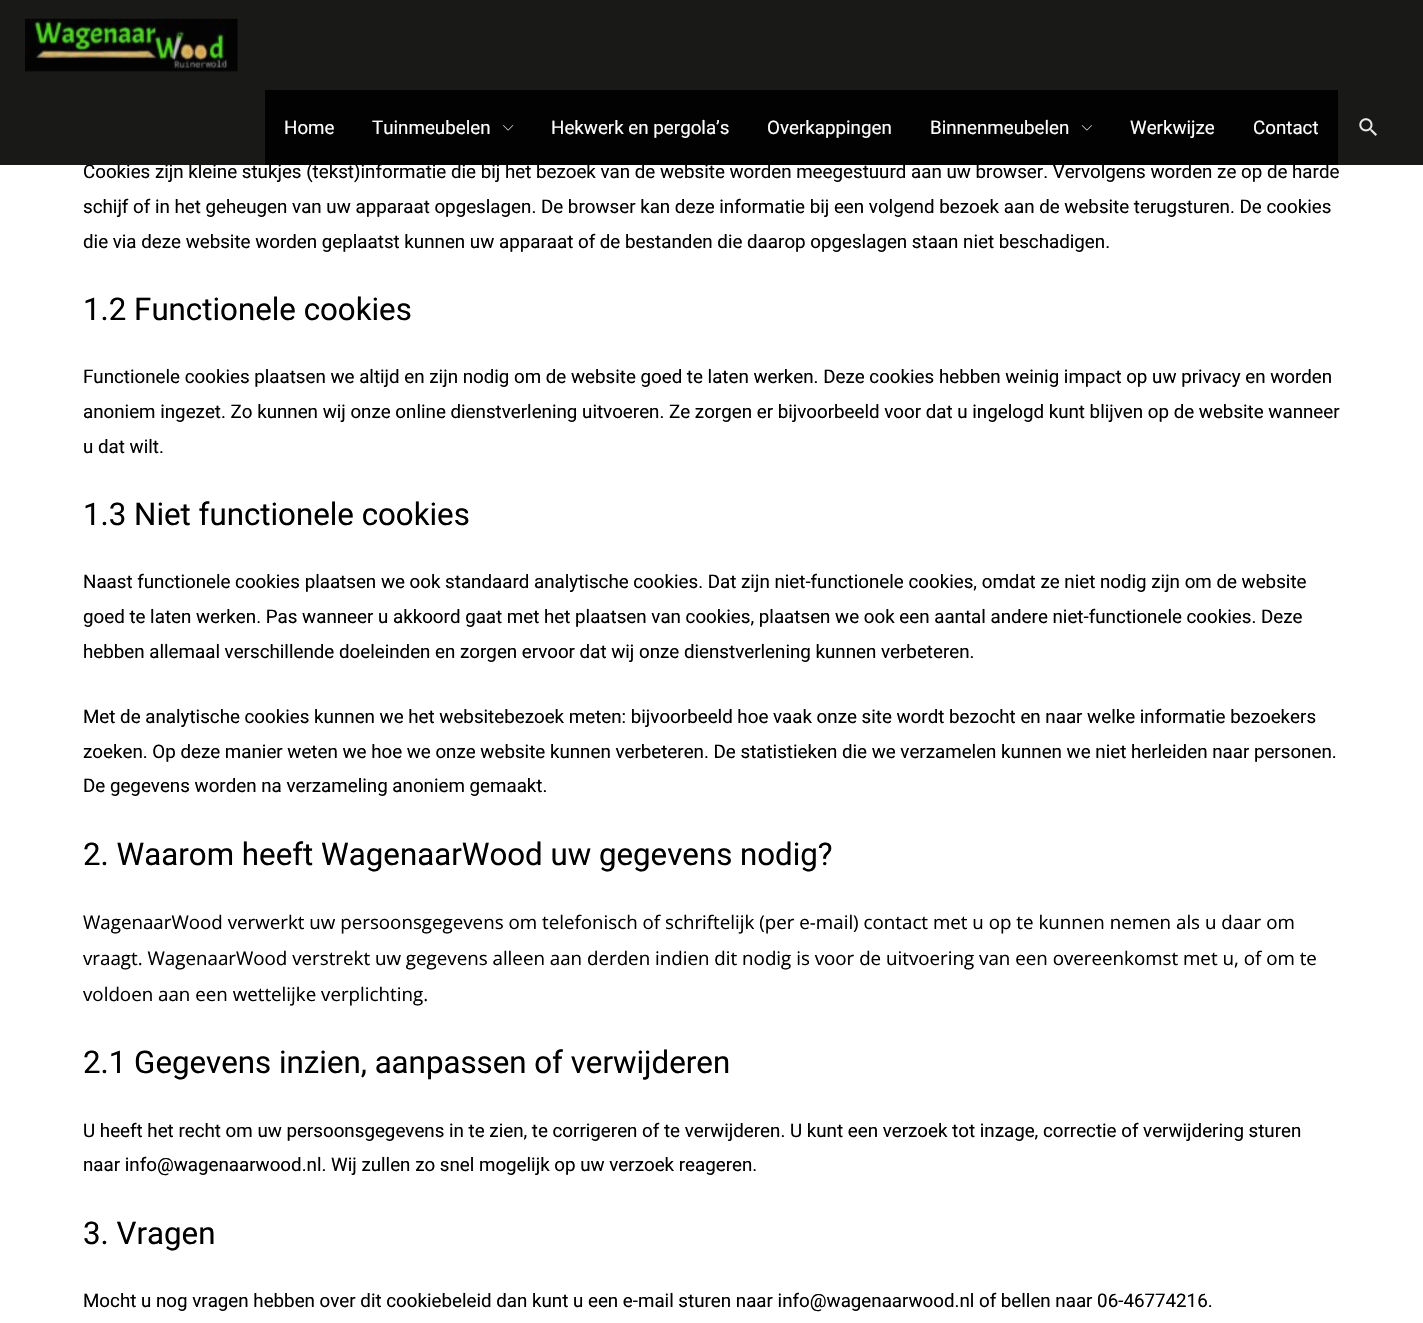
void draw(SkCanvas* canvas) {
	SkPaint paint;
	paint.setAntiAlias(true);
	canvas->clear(0xffffffff);
	SkFont f1(fontMgr->matchFamilyStyle("Roboto", SkFontStyle::Normal()), 18.75);
	f1.setSubpixel(true);
	paint.setColor(0xff000000);
	canvas->drawString("Cookies zijn kleine stukjes (tekst)informatie die bij het bezoek van de website worden meegestuurd aan uw browser. Vervolgens worden ze op de harde", 83, 178, f1, paint);
	paint.setColor(0xe6f7f5e7);
	canvas->drawRect(SkRect::MakeXYWH(0, 0, 1423, 165), paint);
	canvas->drawRect(SkRect::MakeXYWH(87, 163, 1241, 2), paint);
	paint.setColor(0xe6000000);
	canvas->drawRect(SkRect::MakeXYWH(0, 0, 1423, 165), paint);
	canvas->drawImageRect(SkImages::DeferredFromEncodedData(SkData::MakeFromFileName("img1.png")), SkRect::MakeXYWH(25, 18, 213, 54), SkSamplingOptions());
	paint.setColor(0xff020202);
	canvas->drawRect(SkRect::MakeXYWH(265, 90, 1073, 75), paint);
	paint.setColor(0xffffffff);
	canvas->drawString("Home", 284, 134, f1, paint);
	canvas->drawString("Tuinmeubelen", 372, 134, f1, paint);
	canvas->drawImageRect(SkImages::DeferredFromEncodedData(SkData::MakeFromFileName("img2.png")), SkRect::MakeXYWH(503, 125, 11, 6), SkSamplingOptions());
	canvas->drawString("Hekwerk en pergola’s", 551, 134, f1, paint);
	canvas->drawString("Overkappingen", 767, 134, f1, paint);
	canvas->drawString("Binnenmeubelen", 930, 134, f1, paint);
	canvas->drawImageRect(SkImages::DeferredFromEncodedData(SkData::MakeFromFileName("img3.png")), SkRect::MakeXYWH(1081, 125, 11, 6), SkSamplingOptions());
	canvas->drawString("Werkwijze", 1130, 134, f1, paint);
	canvas->drawString("Contact", 1253, 134, f1, paint);
	canvas->drawImageRect(SkImages::DeferredFromEncodedData(SkData::MakeFromFileName("img4.png")), SkRect::MakeXYWH(1359, 118, 18, 18), SkSamplingOptions());
	paint.setColor(0xff000000);
	canvas->drawString("schijf of in het geheugen van uw apparaat opgeslagen. De browser kan deze informatie bij een volgend bezoek aan de website terugsturen. De cookies", 83, 213, f1, paint);
	canvas->drawString("die via deze website worden geplaatst kunnen uw apparaat of de bestanden die daarop opgeslagen staan niet beschadigen.", 83, 248, f1, paint);
	SkFont f2(fontMgr->matchFamilyStyle("Roboto", SkFontStyle::Normal()), 31.25);
	f2.setSubpixel(true);
	canvas->drawString("1.2 Functionele cookies", 83, 320, f2, paint);
	canvas->drawString("Functionele cookies plaatsen we altijd en zijn nodig om de website goed te laten werken. Deze cookies hebben weinig impact op uw privacy en worden", 83, 383, f1, paint);
	canvas->drawString("anoniem ingezet. Zo kunnen wij onze online dienstverlening uitvoeren. Ze zorgen er bijvoorbeeld voor dat u ingelogd kunt blijven op de website wanneer", 83, 418, f1, paint);
	canvas->drawString("u dat wilt.", 83, 453, f1, paint);
	canvas->drawString("1.3 Niet functionele cookies", 83, 525, f2, paint);
	canvas->drawString("Naast functionele cookies plaatsen we ook standaard analytische cookies. Dat zijn niet-functionele cookies, omdat ze niet nodig zijn om de website", 83, 588, f1, paint);
	canvas->drawString("goed te laten werken. Pas wanneer u akkoord gaat met het plaatsen van cookies, plaatsen we ook een aantal andere niet-functionele cookies. Deze", 83, 623, f1, paint);
	canvas->drawString("hebben allemaal verschillende doeleinden en zorgen ervoor dat wij onze dienstverlening kunnen verbeteren.", 83, 658, f1, paint);
	canvas->drawString("Met de analytische cookies kunnen we het websitebezoek meten: bijvoorbeeld hoe vaak onze site wordt bezocht en naar welke informatie bezoekers", 83, 723, f1, paint);
	canvas->drawString("zoeken. Op deze manier weten we hoe we onze website kunnen verbeteren. De statistieken die we verzamelen kunnen we niet herleiden naar personen.", 83, 758, f1, paint);
	canvas->drawString("De gegevens worden na verzameling anoniem gemaakt.", 83, 792, f1, paint);
	canvas->drawString("2. Waarom heeft WagenaarWood uw gegevens nodig?", 83, 865, f2, paint);
	SkFont f3(fontMgr->matchFamilyStyle("Open Sans", SkFontStyle::Normal()), 18.75);
	f3.setSubpixel(true);
	canvas->drawString("WagenaarWood verwerkt uw persoonsgegevens om telefonisch of schriftelijk (per e-mail) contact met u op te kunnen nemen als u daar om", 83, 929, f3, paint);
	canvas->drawString("vraagt. WagenaarWood verstrekt uw gegevens alleen aan derden indien dit nodig is voor de uitvoering van een overeenkomst met u, of om te", 83, 965, f3, paint);
	canvas->drawString("voldoen aan een wettelijke verplichting.", 83, 1001, f3, paint);
	canvas->drawString("2.1 Gegevens inzien, aanpassen of verwijderen", 83, 1073, f2, paint);
	canvas->drawString("U heeft het recht om uw persoonsgegevens in te zien, te corrigeren of te verwijderen. U kunt een verzoek tot inzage, correctie of verwijdering sturen", 83, 1137, f1, paint);
	canvas->drawString("naar info@wagenaarwood.nl. Wij zullen zo snel mogelijk op uw verzoek reageren.", 83, 1171, f1, paint);
	canvas->drawString("3. Vragen", 83, 1244, f2, paint);
	canvas->drawString("Mocht u nog vragen hebben over dit cookiebeleid dan kunt u een e-mail sturen naar info@wagenaarwood.nl of bellen naar 06-46774216.", 83, 1307, f1, paint);
}
